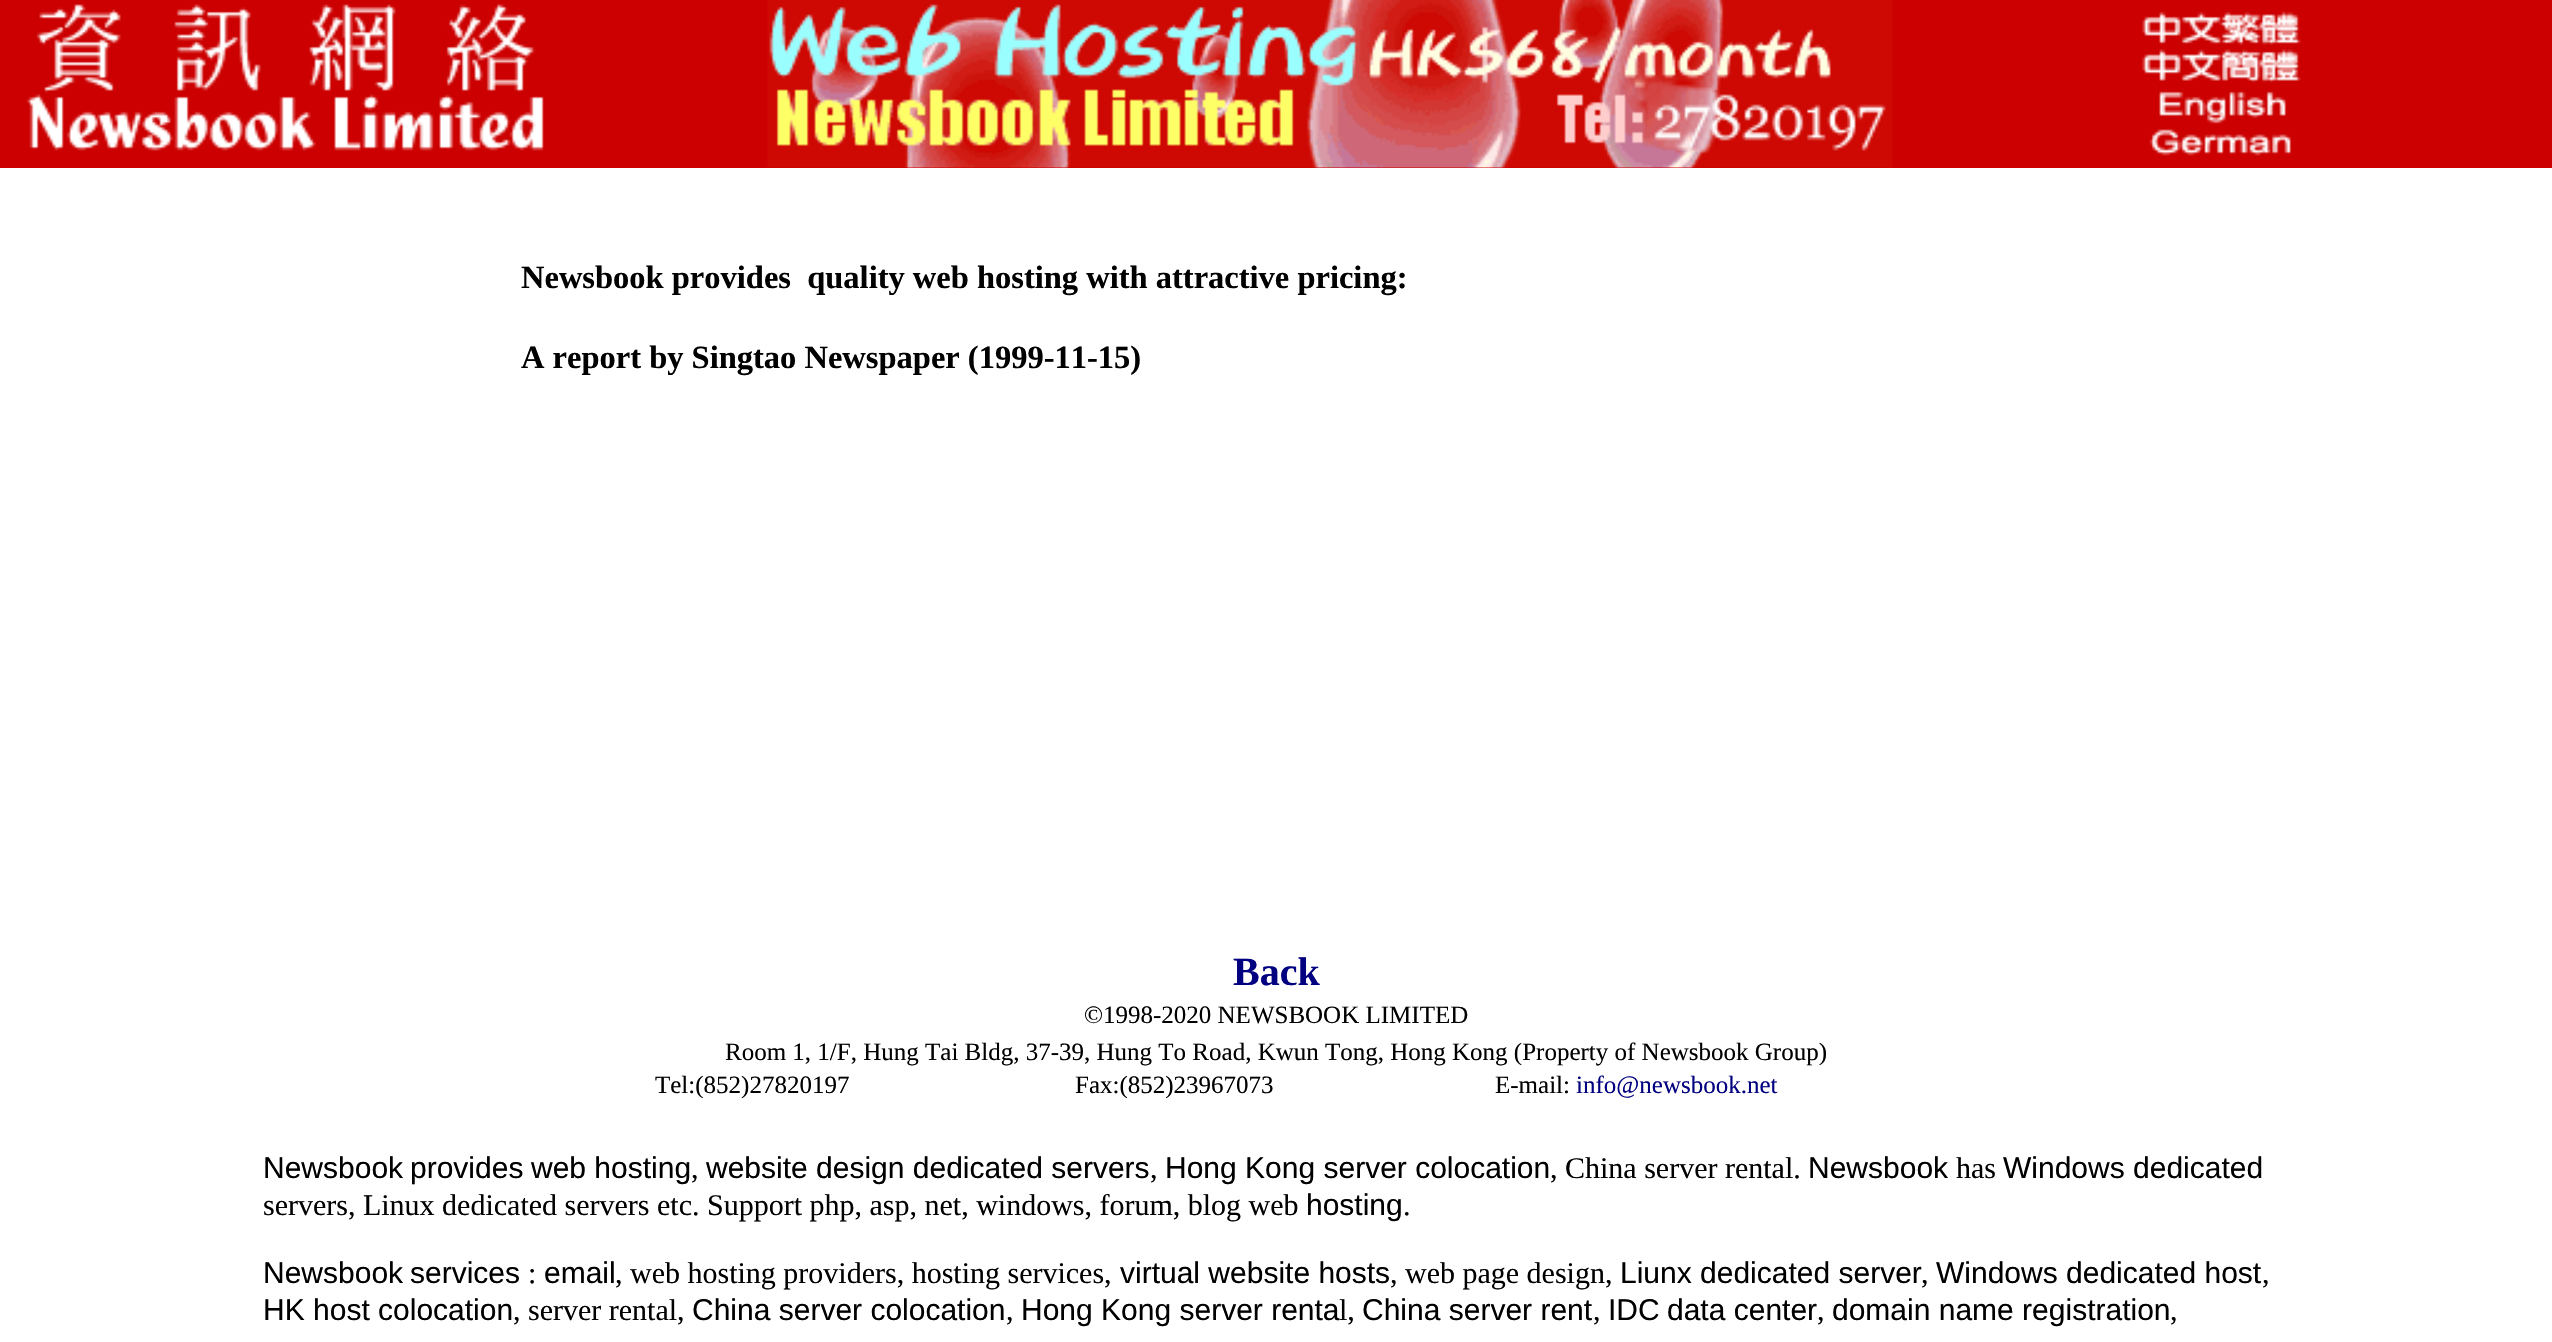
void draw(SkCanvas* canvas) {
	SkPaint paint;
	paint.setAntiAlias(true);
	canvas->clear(0xffffffff);
	paint.setColor(0xffcc0000);
	canvas->drawRect(SkRect::MakeXYWH(0, 0, 2552, 168), paint);
	canvas->drawImageRect(SkImages::DeferredFromEncodedData(SkData::MakeFromFileName("img1.png")), SkRect::MakeXYWH(27, 4, 517, 147), SkSamplingOptions());
	canvas->drawImageRect(SkImages::DeferredFromEncodedData(SkData::MakeFromFileName("img2.png")), SkRect::MakeXYWH(767, 0, 1126, 168), SkSamplingOptions());
	canvas->drawImageRect(SkImages::DeferredFromEncodedData(SkData::MakeFromFileName("img3.png")), SkRect::MakeXYWH(2142, 11, 159, 35), SkSamplingOptions());
	canvas->drawImageRect(SkImages::DeferredFromEncodedData(SkData::MakeFromFileName("img4.png")), SkRect::MakeXYWH(2142, 49, 159, 34), SkSamplingOptions());
	canvas->drawImageRect(SkImages::DeferredFromEncodedData(SkData::MakeFromFileName("img5.png")), SkRect::MakeXYWH(2159, 91, 127, 33), SkSamplingOptions());
	canvas->drawImageRect(SkImages::DeferredFromEncodedData(SkData::MakeFromFileName("img6.png")), SkRect::MakeXYWH(2149, 129, 142, 27), SkSamplingOptions());
	SkFont f1(fontMgr->matchFamilyStyle("Liberation Serif", SkFontStyle::Bold()), 32.5);
	f1.setSubpixel(true);
	paint.setColor(0xff000000);
	canvas->drawString("Newsbook provides  quality web hosting with attractive pricing:", 521, 288, f1, paint);
	canvas->drawString("A report by Singtao Newspaper (1999-11-15)", 521, 368, f1, paint);
	SkFont f2(fontMgr->matchFamilyStyle("Liberation Serif", SkFontStyle::Bold()), 40);
	f2.setSubpixel(true);
	paint.setColor(0xff000080);
	canvas->drawString("Back", 1233, 985, f2, paint);
	SkFont f3(fontMgr->matchFamilyStyle("Liberation Serif", SkFontStyle::Normal()), 25);
	f3.setSubpixel(true);
	paint.setColor(0xff000000);
	canvas->drawString("©1998-2020 NEWSBOOK LIMITED", 1084, 1023, f3, paint);
	canvas->drawString("Room 1, 1/F, Hung Tai Bldg, 37-39, Hung To Road, Kwun Tong, Hong Kong (Property of Newsbook Group)", 725, 1060, f3, paint);
	canvas->drawString("Tel:(852)27820197", 655, 1093, f3, paint);
	canvas->drawString("Fax:(852)23967073", 1075, 1093, f3, paint);
	canvas->drawString("E-mail:", 1495, 1093, f3, paint);
	paint.setColor(0xff000080);
	canvas->drawString("info@newsbook.net", 1576, 1093, f3, paint);
	SkFont f4(fontMgr->matchFamilyStyle("Liberation Sans", SkFontStyle::Normal()), 30);
	f4.setSubpixel(true);
	paint.setColor(0xff000000);
	canvas->drawString("Newsbook", 263, 1178, f4, paint);
	canvas->drawString("provides", 410, 1178, f4, paint);
	canvas->drawString("web hosting", 531, 1178, f4, paint);
	SkFont f5(fontMgr->matchFamilyStyle("Liberation Serif", SkFontStyle::Normal()), 30);
	f5.setSubpixel(true);
	canvas->drawString(",", 691, 1178, f5, paint);
	canvas->drawString("website design dedicated servers", 706, 1178, f4, paint);
	canvas->drawString(",", 1150, 1178, f5, paint);
	canvas->drawString("Hong Kong server colocation", 1165, 1178, f4, paint);
	canvas->drawString(", China server rental.", 1550, 1178, f5, paint);
	canvas->drawString("Newsbook", 1808, 1178, f4, paint);
	canvas->drawString("has", 1956, 1178, f5, paint);
	canvas->drawString("Windows dedicated", 2003, 1178, f4, paint);
	canvas->drawString("servers, Linux dedicated servers etc. Support php, asp, net, windows, forum, blog web", 263, 1215, f5, paint);
	canvas->drawString("hosting", 1306, 1215, f4, paint);
	canvas->drawString(".", 1403, 1215, f5, paint);
	canvas->drawString("Newsbook", 263, 1283, f4, paint);
	canvas->drawString("services", 410, 1283, f4, paint);
	canvas->drawString(":", 528, 1283, f5, paint);
	canvas->drawString("email", 544, 1283, f4, paint);
	canvas->drawString(", web hosting providers, hosting services,", 615, 1283, f5, paint);
	canvas->drawString("virtual website hosts", 1120, 1283, f4, paint);
	canvas->drawString(", web page design,", 1390, 1283, f5, paint);
	canvas->drawString("Liunx dedicated server", 1620, 1283, f4, paint);
	canvas->drawString(",", 1921, 1283, f5, paint);
	canvas->drawString("Windows dedicated host", 1936, 1283, f4, paint);
	canvas->drawString(",", 2262, 1283, f5, paint);
	canvas->drawString("HK host colocation", 263, 1320, f4, paint);
	canvas->drawString(", server rental,", 513, 1320, f5, paint);
	canvas->drawString("China server colocation", 692, 1320, f4, paint);
	canvas->drawString(",", 1006, 1320, f5, paint);
	canvas->drawString("Hong Kong server renta", 1021, 1320, f4, paint);
	canvas->drawString("l,", 1339, 1320, f5, paint);
	canvas->drawString("China server rent", 1362, 1320, f4, paint);
	canvas->drawString(",", 1593, 1320, f5, paint);
	canvas->drawString("IDC", 1608, 1320, f4, paint);
	canvas->drawString("data center", 1667, 1320, f4, paint);
	canvas->drawString(",", 1817, 1320, f5, paint);
	canvas->drawString("domain name registration", 1832, 1320, f4, paint);
	canvas->drawString(",", 2170, 1320, f5, paint);
}
